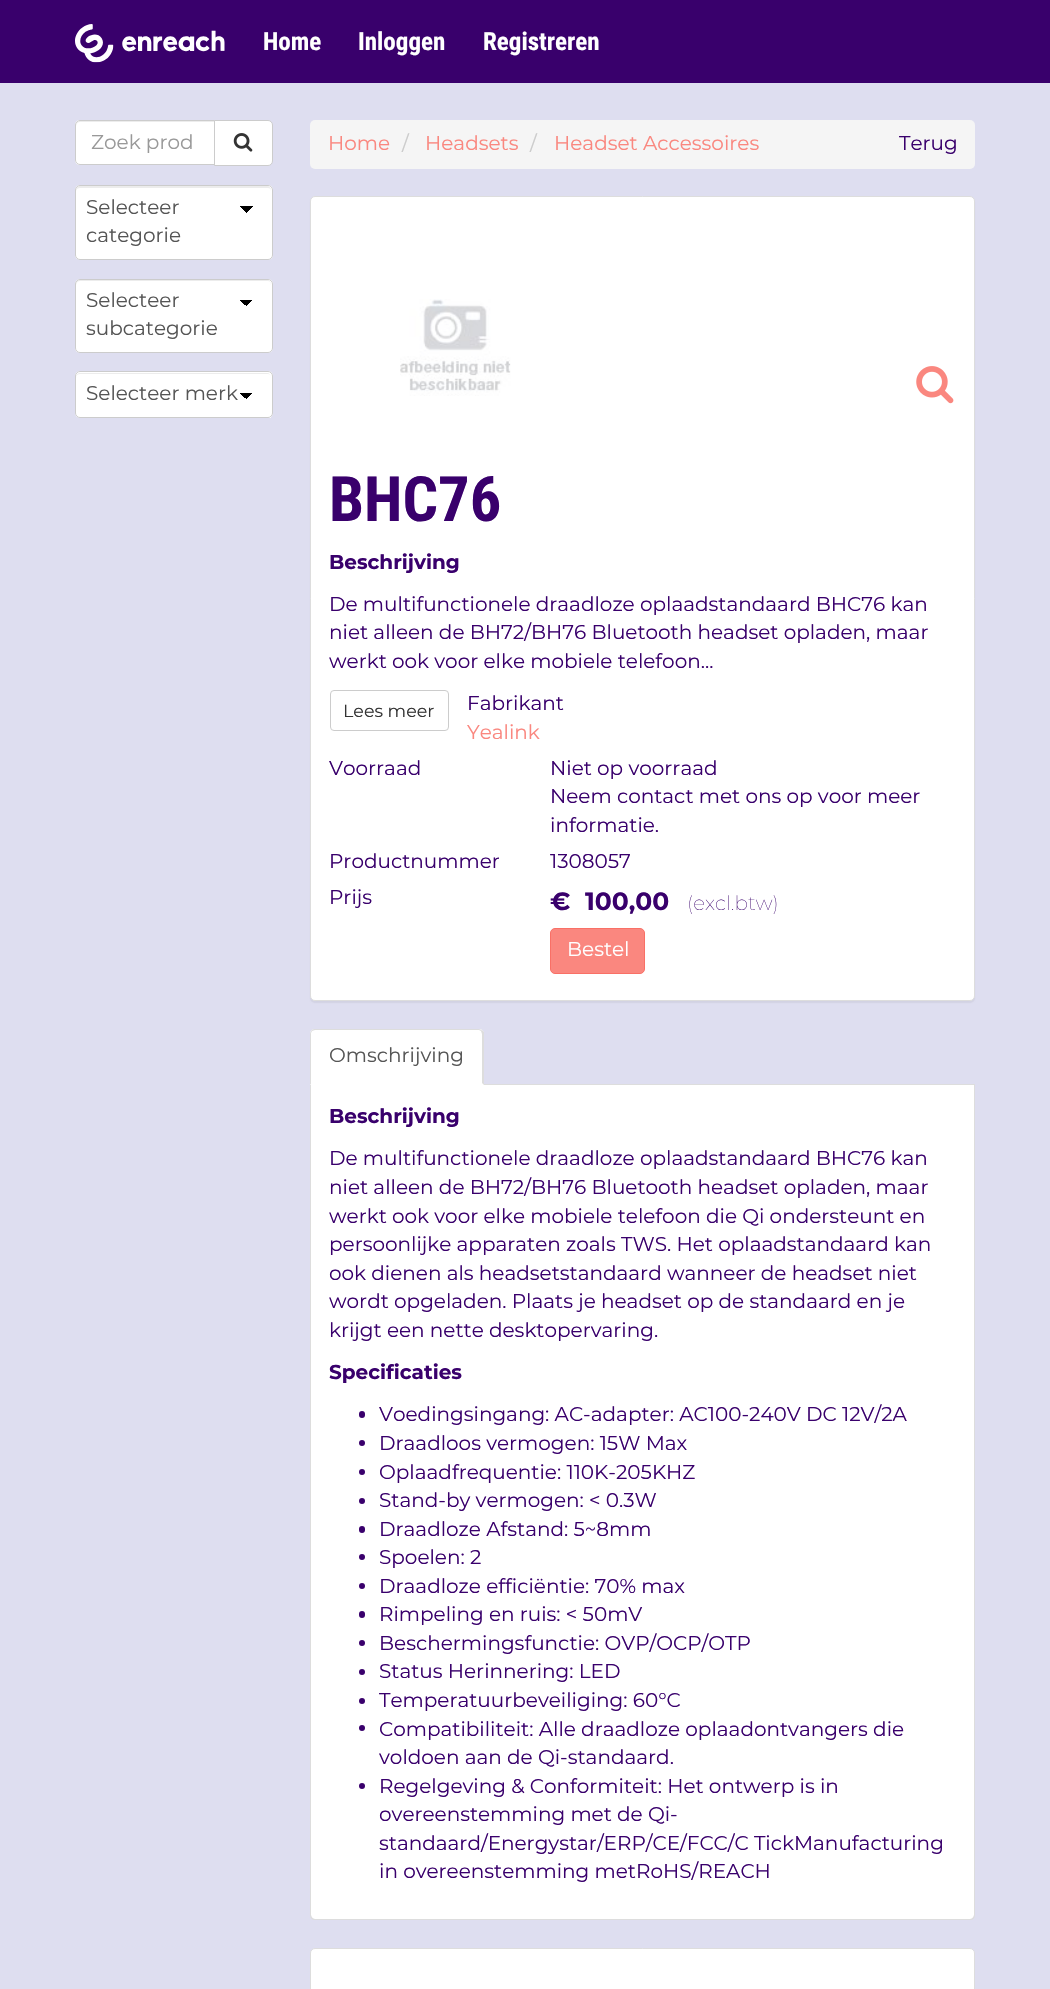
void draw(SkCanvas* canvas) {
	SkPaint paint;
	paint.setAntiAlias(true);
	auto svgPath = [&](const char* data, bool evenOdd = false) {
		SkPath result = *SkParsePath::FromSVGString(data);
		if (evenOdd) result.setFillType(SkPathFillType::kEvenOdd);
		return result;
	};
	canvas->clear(0xffdedef0);
	paint.setColor(0xff39006c);
	canvas->drawRect(SkRect::MakeXYWH(0, 0, 1050, 83), paint);
	canvas->drawImageRect(SkImages::DeferredFromEncodedData(SkData::MakeFromFileName("img1.png")), SkRect::MakeXYWH(75, 24, 150, 39), SkSamplingOptions());
	SkFont f1(fontMgr->matchFamilyStyle("Roboto Condensed", SkFontStyle::Bold()), 25);
	f1.setSubpixel(true);
	paint.setColor(0xffffffff);
	canvas->drawString("Home", 263, 50, f1, paint);
	canvas->drawString("Inloggen", 358, 50, f1, paint);
	canvas->drawString("Registreren", 483, 50, f1, paint);
	canvas->drawPath(svgPath("M80 120H215V165H80C77 165 75 163 75 160V125C75 122 77 120 80 120Z"), paint);
	paint.setColor(0xffececec);
	canvas->drawPath(svgPath("M80 122H214V121H80C78 121 76 123 76 125V126C76 124 78 122 80 122Z"), paint);
	paint.setStroke(true);
	paint.setStrokeWidth(1);
	paint.setColor(0xffcccccc);
	canvas->drawPath(svgPath("M80 120.5H214.5V164.5H80C77.5 164.5 75.5 162.5 75.5 160V125C75.5 122.5 77.5 120.5 80 120.5Z"), paint);
	SkFont f2(fontMgr->matchFamilyStyle("Montserrat", SkFontStyle::Normal()), 20);
	f2.setSubpixel(true);
	paint.setStroke(false);
	paint.setColor(0xff999999);
	canvas->drawString("Zoek prod", 91, 149, f2, paint);
	paint.setColor(0xffffffff);
	canvas->drawPath(svgPath("M214.5 120.5H268C270.5 120.5 272.5 122.5 272.5 125V161C272.5 163.5 270.5 165.5 268 165.5H214.5Z"), paint);
	paint.setStroke(true);
	paint.setColor(0xffcccccc);
	canvas->drawPath(svgPath("M214.5 120.5H268C270.5 120.5 272.5 122.5 272.5 125V161C272.5 163.5 270.5 165.5 268 165.5H214.5Z"), paint);
	canvas->drawImageRect(SkImages::DeferredFromEncodedData(SkData::MakeFromFileName("img2.png")), SkRect::MakeXYWH(233, 133, 20, 19), SkSamplingOptions());
	paint.setStroke(false);
	paint.setColor(0xffffffff);
	canvas->drawRoundRect(SkRect::MakeXYWH(75, 185, 198, 75), 5, 5, paint);
	{
		const SkColor colors[] = {0xff000000, 0xffffffff};
		const float stops[] = {0.5, 0.5};
		const SkPoint ends[] = {{246, 206}, {253, 213}};
		paint.setShader(SkGradientShader::MakeLinear(ends, colors, stops, 2, SkTileMode::kClamp));
		paint.setAlpha(255);
	}
	canvas->drawRect(SkRect::MakeXYWH(246, 206, 7, 7), paint);
	{
		const SkColor colors[] = {0xffffffff, 0xff000000};
		const float stops[] = {0.5, 0.5};
		const SkPoint ends[] = {{240, 213}, {246, 206}};
		paint.setShader(SkGradientShader::MakeLinear(ends, colors, stops, 2, SkTileMode::kClamp));
		paint.setAlpha(255);
	}
	canvas->drawRect(SkRect::MakeXYWH(240, 206, 6, 7), paint);
	paint.setShader(nullptr);
	paint.setColor(0xffececec);
	canvas->drawPath(svgPath("M80 188H268C270 188 271 189 271 191V190C271 188 269 186 267 186H80C78 186 76 188 76 190V191C76 189 78 188 80 188Z"), paint);
	paint.setStroke(true);
	paint.setColor(0xffcccccc);
	canvas->drawRoundRect(SkRect::MakeXYWH(75.5, 185.5, 197, 74), 4.5, 4.5, paint);
	paint.setStroke(false);
	paint.setColor(0xff555555);
	canvas->drawString("Selecteer", 86, 214, f2, paint);
	canvas->drawString("categorie", 86, 242, f2, paint);
	paint.setColor(0xffffffff);
	canvas->drawRoundRect(SkRect::MakeXYWH(75, 279, 198, 74), 5, 5, paint);
	{
		const SkColor colors[] = {0xff000000, 0xffffffff};
		const float stops[] = {0.5, 0.5};
		const SkPoint ends[] = {{246, 300}, {253, 306}};
		paint.setShader(SkGradientShader::MakeLinear(ends, colors, stops, 2, SkTileMode::kClamp));
		paint.setAlpha(255);
	}
	canvas->drawRect(SkRect::MakeXYWH(246, 300, 7, 6), paint);
	{
		const SkColor colors[] = {0xffffffff, 0xff000000};
		const float stops[] = {0.5, 0.5};
		const SkPoint ends[] = {{240, 306}, {246, 300}};
		paint.setShader(SkGradientShader::MakeLinear(ends, colors, stops, 2, SkTileMode::kClamp));
		paint.setAlpha(255);
	}
	canvas->drawRect(SkRect::MakeXYWH(240, 300, 6, 5), paint);
	paint.setShader(nullptr);
	paint.setColor(0xffececec);
	canvas->drawPath(svgPath("M80 281H268C270 281 271 283 271 285V284C271 282 269 280 267 280H80C78 280 76 282 76 284V285C76 283 78 281 80 281Z"), paint);
	paint.setStroke(true);
	paint.setColor(0xffcccccc);
	canvas->drawRoundRect(SkRect::MakeXYWH(75.5, 279.5, 197, 73), 4.5, 4.5, paint);
	paint.setStroke(false);
	paint.setColor(0xff555555);
	canvas->drawString("Selecteer", 86, 307, f2, paint);
	canvas->drawString("subcategorie", 86, 335, f2, paint);
	paint.setColor(0xffffffff);
	canvas->drawRoundRect(SkRect::MakeXYWH(75, 371, 198, 47), 5, 5, paint);
	canvas->drawRect(SkRect::MakeXYWH(269, 417, 2, 1), paint);
	{
		const SkColor colors[] = {0xff000000, 0xffffffff};
		const float stops[] = {0.5, 0.5};
		const SkPoint ends[] = {{246, 393}, {253, 399}};
		paint.setShader(SkGradientShader::MakeLinear(ends, colors, stops, 2, SkTileMode::kClamp));
		paint.setAlpha(255);
	}
	canvas->drawRect(SkRect::MakeXYWH(246, 393, 7, 6), paint);
	{
		const SkColor colors[] = {0xffffffff, 0xff000000};
		const float stops[] = {0.5, 0.5};
		const SkPoint ends[] = {{240, 399}, {246, 393}};
		paint.setShader(SkGradientShader::MakeLinear(ends, colors, stops, 2, SkTileMode::kClamp));
		paint.setAlpha(255);
	}
	canvas->drawRect(SkRect::MakeXYWH(240, 393, 6, 5), paint);
	paint.setShader(nullptr);
	paint.setColor(0xffececec);
	canvas->drawPath(svgPath("M80 374H268C270 374 271 375 271 378V377C271 375 269 373 267 373H80C78 373 76 375 76 377V378C76 375 78 374 80 374Z"), paint);
	paint.setStroke(true);
	paint.setColor(0xffcccccc);
	canvas->drawRoundRect(SkRect::MakeXYWH(75.5, 371.5, 197, 46), 4.5, 4.5, paint);
	paint.setStroke(false);
	paint.setColor(0xff555555);
	canvas->drawString("Selecteer merk", 86, 400, f2, paint);
	paint.setColor(0xfff5f5f5);
	canvas->drawRoundRect(SkRect::MakeXYWH(310, 120, 665, 49), 5, 5, paint);
	paint.setColor(0xfffa877f);
	canvas->drawString("Home", 328, 150, f2, paint);
	paint.setColor(0xffcccccc);
	canvas->drawString("/", 402, 150, f2, paint);
	paint.setColor(0xfffa877f);
	canvas->drawString("Headsets", 425, 150, f2, paint);
	paint.setColor(0xffcccccc);
	canvas->drawString("/", 530, 150, f2, paint);
	paint.setColor(0xfffa877f);
	canvas->drawString("Headset Accessoires", 554, 150, f2, paint);
	paint.setColor(0xff39006c);
	canvas->drawString("Terug", 899, 150, f2, paint);
	paint.setColor(0x0d000000);
	paint.setMaskFilter(SkMaskFilter::MakeBlur(kNormal_SkBlurStyle, 0.5));
	canvas->drawRoundRect(SkRect::MakeXYWH(310, 198, 665, 805), 5, 5, paint);
	paint.setMaskFilter(nullptr);
	paint.setColor(0xffffffff);
	canvas->drawRoundRect(SkRect::MakeXYWH(310.5, 196.5, 664, 804), 4.5, 4.5, paint);
	paint.setStroke(true);
	paint.setColor(0xffdddddd);
	canvas->drawRoundRect(SkRect::MakeXYWH(310.5, 196.5, 664, 804), 4.5, 4.5, paint);
	canvas->drawImageRect(SkImages::DeferredFromEncodedData(SkData::MakeFromFileName("img3.png")), SkRect::MakeXYWH(400, 299, 111, 97), SkSamplingOptions());
	canvas->drawImageRect(SkImages::DeferredFromEncodedData(SkData::MakeFromFileName("img4.png")), SkRect::MakeXYWH(916, 366, 38, 38), SkSamplingOptions());
	SkFont f3(fontMgr->matchFamilyStyle("Roboto Condensed", SkFontStyle::Bold()), 62.5);
	f3.setSubpixel(true);
	paint.setStroke(false);
	paint.setColor(0xff39006c);
	canvas->drawString("BHC76", 329, 521, f3, paint);
	SkFont f4(fontMgr->matchFamilyStyle("Montserrat", SkFontStyle::Bold()), 20);
	f4.setSubpixel(true);
	canvas->drawString("Beschrijving", 329, 569, f4, paint);
	canvas->drawString("De multifunctionele draadloze oplaadstandaard BHC76 kan", 329, 611, f2, paint);
	canvas->drawString("niet alleen de BH72/BH76 Bluetooth headset opladen, maar", 329, 639, f2, paint);
	canvas->drawString("werkt ook voor elke mobiele telefoon...", 329, 668, f2, paint);
	paint.setStroke(true);
	paint.setColor(0xffcccccc);
	canvas->drawRoundRect(SkRect::MakeXYWH(330.5, 690.5, 118, 40), 3.5, 3.5, paint);
	SkFont f5(fontMgr->matchFamilyStyle("Montserrat", SkFontStyle::Normal()), 17.5);
	f5.setSubpixel(true);
	paint.setStroke(false);
	paint.setColor(0xff333333);
	canvas->drawString("Lees meer", 343, 717, f5, paint);
	paint.setColor(0xff39006c);
	canvas->drawString("Fabrikant", 467, 710, f2, paint);
	paint.setColor(0xfffa877f);
	canvas->drawString("Yealink", 467, 739, f2, paint);
	paint.setColor(0xff39006c);
	canvas->drawString("Voorraad", 329, 775, f2, paint);
	canvas->drawString("Niet op voorraad", 550, 775, f2, paint);
	canvas->drawString("Neem contact met ons op voor meer", 550, 803, f2, paint);
	canvas->drawString("informatie.", 550, 832, f2, paint);
	canvas->drawString("Productnummer", 329, 868, f2, paint);
	canvas->drawString("1308057", 550, 868, f2, paint);
	canvas->drawString("Prijs", 329, 904, f2, paint);
	SkFont f6(fontMgr->matchFamilyStyle("Montserrat", SkFontStyle::Bold()), 25);
	f6.setSubpixel(true);
	canvas->drawString("€", 550, 910, f6, paint);
	canvas->drawString("100,00", 585, 910, f6, paint);
	SkFont f7(fontMgr->matchFamilyStyle("Montserrat", SkFontStyle(100, SkFontStyle::kNormal_Width, SkFontStyle::kUpright_Slant)), 20);
	f7.setSubpixel(true);
	canvas->drawString("(excl.btw)", 687, 910, f7, paint);
	paint.setColor(0xfffa877f);
	canvas->drawRoundRect(SkRect::MakeXYWH(550.5, 928.5, 94, 45), 4.5, 4.5, paint);
	paint.setStroke(true);
	paint.setColor(0xfff97066);
	canvas->drawRoundRect(SkRect::MakeXYWH(550.5, 928.5, 94, 45), 4.5, 4.5, paint);
	paint.setStroke(false);
	paint.setColor(0xffffffff);
	canvas->drawString("Bestel", 567, 956, f2, paint);
	paint.setColor(0xffdddddd);
	canvas->drawRect(SkRect::MakeXYWH(484, 1084, 491, 1), paint);
	paint.setColor(0xffffffff);
	canvas->drawPath(svgPath("M315 1029H479C482 1029 484 1031 484 1034V1085H310V1034C310 1031 312 1029 315 1029Z"), paint);
	paint.setColor(0xffdddddd);
	canvas->drawPath(svgPath("M315 1029C314 1029 312 1029 312 1030V1031L315 1030H479L481 1031L482 1030L479 1029Z"), paint);
	canvas->drawPath(svgPath("M482 1030L484 1032V1085L482 1083V1034L481 1031Z"), paint);
	canvas->drawPath(svgPath("M310 1085L311 1084V1033L312 1031V1030C311 1031 310 1032 310 1034Z"), paint);
	paint.setColor(0xff555555);
	canvas->drawString("Omschrijving", 329, 1062, f2, paint);
	paint.setColor(0xffffffff);
	canvas->drawPath(svgPath("M311 1085H974V1915C974 1917 972 1919 970 1919H315C313 1919 311 1917 311 1915Z"), paint);
	paint.setColor(0xffdddddd);
	canvas->drawPath(svgPath("M310 1085H975V1915C975 1918 973 1920 970 1920H315C312 1920 310 1918 310 1915ZM311 1085H974V1915C974 1917 972 1919 970 1919H315C313 1919 311 1917 311 1915Z", true), paint);
	paint.setColor(0xff39006c);
	canvas->drawString("Beschrijving", 329, 1123, f4, paint);
	canvas->drawString("De multifunctionele draadloze oplaadstandaard BHC76 kan", 329, 1165, f2, paint);
	canvas->drawString("niet alleen de BH72/BH76 Bluetooth headset opladen, maar", 329, 1194, f2, paint);
	canvas->drawString("werkt ook voor elke mobiele telefoon die Qi ondersteunt en", 329, 1223, f2, paint);
	canvas->drawString("persoonlijke apparaten zoals TWS. Het oplaadstandaard kan", 329, 1251, f2, paint);
	canvas->drawString("ook dienen als headsetstandaard wanneer de headset niet", 329, 1280, f2, paint);
	canvas->drawString("wordt opgeladen. Plaats je headset op de standaard en je", 329, 1308, f2, paint);
	canvas->drawString("krijgt een nette desktopervaring.", 329, 1337, f2, paint);
	canvas->drawString("Specificaties", 329, 1379, f4, paint);
	canvas->drawRoundRect(SkRect::MakeXYWH(359, 1411, 6, 7), 3, 3, paint);
	canvas->drawString("Voedingsingang: AC-adapter: AC100-240V DC 12V/2A", 379, 1421, f2, paint);
	canvas->drawCircle(362, 1443, 3, paint);
	canvas->drawString("Draadloos vermogen: 15W Max", 379, 1450, f2, paint);
	canvas->drawCircle(362, 1472, 3, paint);
	canvas->drawString("Oplaadfrequentie: 110K-205KHZ", 379, 1479, f2, paint);
	canvas->drawCircle(362, 1501, 3, paint);
	canvas->drawString("Stand-by vermogen: < 0.3W", 379, 1507, f2, paint);
	canvas->drawRoundRect(SkRect::MakeXYWH(359, 1526, 6, 7), 3, 3, paint);
	canvas->drawString("Draadloze Afstand: 5~8mm", 379, 1536, f2, paint);
	canvas->drawCircle(362, 1557, 3, paint);
	canvas->drawString("Spoelen: 2", 379, 1564, f2, paint);
	canvas->drawCircle(362, 1586, 3, paint);
	canvas->drawString("Draadloze efficiëntie: 70% max", 379, 1593, f2, paint);
	canvas->drawRoundRect(SkRect::MakeXYWH(359, 1611, 6, 7), 3, 3, paint);
	canvas->drawString("Rimpeling en ruis: < 50mV", 379, 1621, f2, paint);
	canvas->drawCircle(362, 1643, 3, paint);
	canvas->drawString("Beschermingsfunctie: OVP/OCP/OTP", 379, 1650, f2, paint);
	canvas->drawCircle(362, 1672, 3, paint);
	canvas->drawString("Status Herinnering: LED", 379, 1678, f2, paint);
	canvas->drawCircle(362, 1701, 3, paint);
	canvas->drawString("Temperatuurbeveiliging: 60°C", 379, 1707, f2, paint);
	canvas->drawCircle(362, 1728, 3, paint);
	canvas->drawString("Compatibiliteit: Alle draadloze oplaadontvangers die", 379, 1736, f2, paint);
	canvas->drawString("voldoen aan de Qi-standaard.", 379, 1764, f2, paint);
	canvas->drawCircle(362, 1786, 3, paint);
	canvas->drawString("Regelgeving & Conformiteit: Het ontwerp is in", 379, 1793, f2, paint);
	canvas->drawString("overeenstemming met de Qi-", 379, 1821, f2, paint);
	canvas->drawString("standaard/Energystar/ERP/CE/FCC/C TickManufacturing", 379, 1850, f2, paint);
	canvas->drawString("in overeenstemming metRoHS/REACH", 379, 1878, f2, paint);
	paint.setColor(0xffffffff);
	canvas->drawRoundRect(SkRect::MakeXYWH(310.5, 1948.5, 664, 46), 4.5, 4.5, paint);
	paint.setStroke(true);
	paint.setColor(0xffdddddd);
	canvas->drawRoundRect(SkRect::MakeXYWH(310.5, 1948.5, 664, 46), 4.5, 4.5, paint);
}
